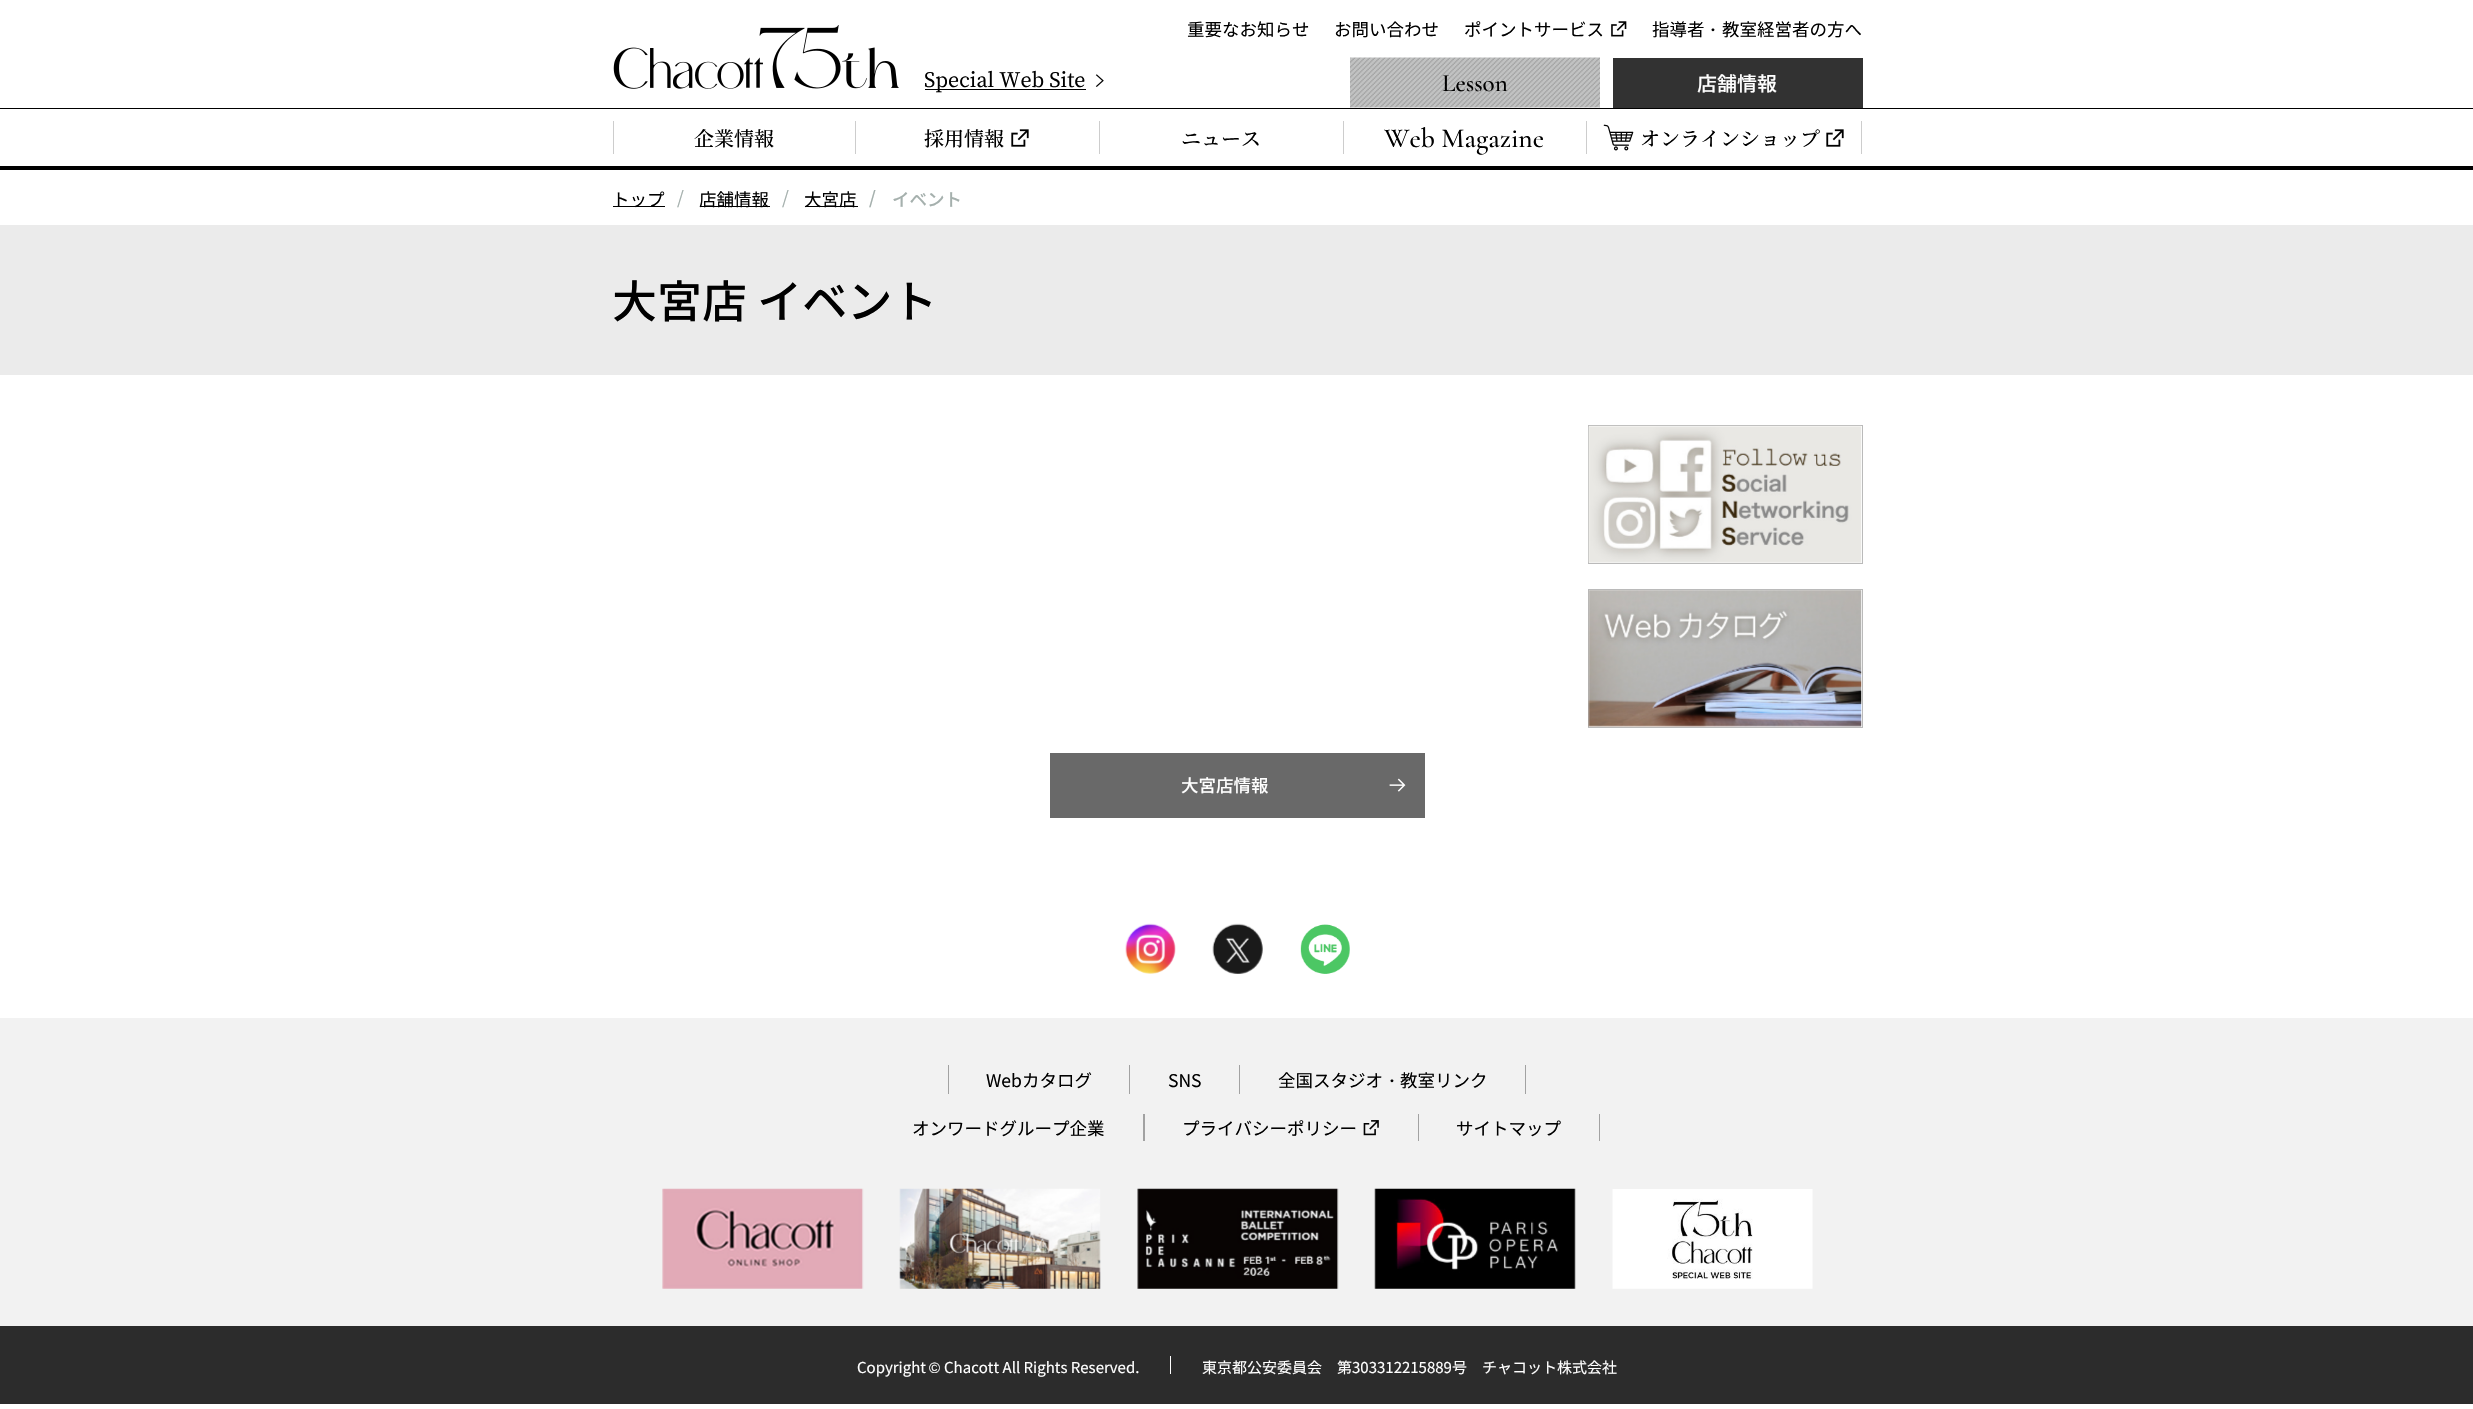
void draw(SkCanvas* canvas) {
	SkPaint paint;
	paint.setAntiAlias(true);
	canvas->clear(0xffffffff);
	paint.setColor(0xff000000);
	canvas->drawRect(SkRect::MakeXYWH(0, 166, 2473, 4), paint);
	canvas->drawImageRect(SkImages::DeferredFromEncodedData(SkData::MakeFromFileName("img1.png")), SkRect::MakeXYWH(613, 25, 286, 64), SkSamplingOptions());
	canvas->drawRect(SkRect::MakeXYWH(925, 89, 161, 1), paint);
	SkFont f1(fontMgr->matchFamilyStyle("Noto Serif JP", SkFontStyle(500, SkFontStyle::kNormal_Width, SkFontStyle::kUpright_Slant)), 20);
	f1.setSubpixel(true);
	canvas->drawString("Special Web Site", 924, 87, f1, paint);
	canvas->drawImageRect(SkImages::DeferredFromEncodedData(SkData::MakeFromFileName("img2.png")), SkRect::MakeXYWH(1095, 74, 9, 13), SkSamplingOptions());
	SkFont f2(fontMgr->matchFamilyStyle("Noto Sans JP", SkFontStyle::Normal()), 17.5);
	f2.setSubpixel(true);
	canvas->drawString("重要なお知らせ", 1187, 36, f2, paint);
	canvas->drawString("お問い合わせ", 1334, 36, f2, paint);
	canvas->drawString("ポイントサービス", 1464, 36, f2, paint);
	canvas->drawImageRect(SkImages::DeferredFromEncodedData(SkData::MakeFromFileName("img3.png")), SkRect::MakeXYWH(1611, 21, 16, 16), SkSamplingOptions());
	canvas->drawString("指導者", 1652, 36, f2, paint);
	SkFont f3(fontMgr->matchFamilyStyle("WenQuanYi Zen Hei", SkFontStyle(500, SkFontStyle::kNormal_Width, SkFontStyle::kUpright_Slant)), 17.5);
	f3.setSubpixel(true);
	canvas->drawString("・", 1704, 36, f3, paint);
	canvas->drawString("教室経営者の方へ", 1722, 36, f2, paint);
	canvas->drawRect(SkRect::MakeXYWH(0, 108, 2473, 1), paint);
	canvas->drawImageRect(SkImages::DeferredFromEncodedData(SkData::MakeFromFileName("img4.png")), SkRect::MakeXYWH(1350, 57, 250, 51), SkSamplingOptions());
	SkFont f4(fontMgr->matchFamilyStyle("Cormorant Garamond", SkFontStyle(500, SkFontStyle::kNormal_Width, SkFontStyle::kUpright_Slant)), 25);
	f4.setSubpixel(true);
	canvas->drawString("Lesson", 1442, 91, f4, paint);
	paint.setColor(0xff323232);
	canvas->drawRect(SkRect::MakeXYWH(1613, 58, 250, 50), paint);
	SkFont f5(fontMgr->matchFamilyStyle("Noto Sans JP", SkFontStyle(500, SkFontStyle::kNormal_Width, SkFontStyle::kUpright_Slant)), 20);
	f5.setSubpixel(true);
	paint.setColor(0xffffffff);
	canvas->drawString("店舗情報", 1697, 91, f5, paint);
	paint.setColor(0xffcdcdcd);
	canvas->drawRect(SkRect::MakeXYWH(855, 121, 1, 33), paint);
	canvas->drawRect(SkRect::MakeXYWH(613, 121, 1, 33), paint);
	paint.setColor(0xff000000);
	canvas->drawString("企業情報", 694, 146, f1, paint);
	paint.setColor(0xffcdcdcd);
	canvas->drawRect(SkRect::MakeXYWH(1099, 121, 1, 33), paint);
	paint.setColor(0xff000000);
	canvas->drawString("採用情報", 924, 146, f1, paint);
	canvas->drawImageRect(SkImages::DeferredFromEncodedData(SkData::MakeFromFileName("img5.png")), SkRect::MakeXYWH(1011, 129, 18, 18), SkSamplingOptions());
	paint.setColor(0xffcdcdcd);
	canvas->drawRect(SkRect::MakeXYWH(1343, 121, 1, 33), paint);
	paint.setColor(0xff000000);
	canvas->drawString("ニュース", 1181, 146, f1, paint);
	paint.setColor(0xffcdcdcd);
	canvas->drawRect(SkRect::MakeXYWH(1586, 121, 1, 33), paint);
	SkFont f6(fontMgr->matchFamilyStyle("Cormorant Garamond", SkFontStyle(500, SkFontStyle::kNormal_Width, SkFontStyle::kUpright_Slant)), 27.5);
	f6.setSubpixel(true);
	paint.setColor(0xff000000);
	canvas->drawString("Web Magazine", 1384, 147, f6, paint);
	paint.setColor(0xffcdcdcd);
	canvas->drawRect(SkRect::MakeXYWH(1861, 121, 1, 33), paint);
	canvas->drawImageRect(SkImages::DeferredFromEncodedData(SkData::MakeFromFileName("img6.png")), SkRect::MakeXYWH(1603, 124, 31, 27), SkSamplingOptions());
	paint.setColor(0xff000000);
	canvas->drawString("オンラインショップ", 1640, 146, f1, paint);
	canvas->drawImageRect(SkImages::DeferredFromEncodedData(SkData::MakeFromFileName("img5.png")), SkRect::MakeXYWH(1826, 129, 18, 18), SkSamplingOptions());
	canvas->drawRect(SkRect::MakeXYWH(613, 206, 52, 1), paint);
	canvas->drawString("トップ", 612, 206, f2, paint);
	paint.setColor(0xffa5b0ad);
	canvas->drawString("/", 677, 204, f2, paint);
	paint.setColor(0xff000000);
	canvas->drawRect(SkRect::MakeXYWH(700, 206, 70, 1), paint);
	canvas->drawString("店舗情報", 699, 206, f2, paint);
	paint.setColor(0xffa5b0ad);
	canvas->drawString("/", 782, 204, f2, paint);
	paint.setColor(0xff000000);
	canvas->drawRect(SkRect::MakeXYWH(805, 206, 53, 1), paint);
	canvas->drawString("大宮店", 804, 206, f2, paint);
	SkFont f7(fontMgr->matchFamilyStyle("Noto Sans JP", SkFontStyle(500, SkFontStyle::kNormal_Width, SkFontStyle::kUpright_Slant)), 17.5);
	f7.setSubpixel(true);
	paint.setColor(0xffa5b0ad);
	canvas->drawString("/", 869, 204, f7, paint);
	canvas->drawString("イベント", 892, 206, f7, paint);
	paint.setColor(0xffebebeb);
	canvas->drawRect(SkRect::MakeXYWH(0, 225, 2473, 150), paint);
	SkFont f8(fontMgr->matchFamilyStyle("Noto Sans JP", SkFontStyle(500, SkFontStyle::kNormal_Width, SkFontStyle::kUpright_Slant)), 45);
	f8.setSubpixel(true);
	paint.setColor(0xff000000);
	canvas->drawString("大宮店 イベント", 612, 318, f8, paint);
	paint.setStroke(true);
	paint.setStrokeWidth(1);
	paint.setColor(0xffbababa);
	canvas->drawRect(SkRect::MakeXYWH(1588.5, 425.5, 274, 138), paint);
	canvas->drawImageRect(SkImages::DeferredFromEncodedData(SkData::MakeFromFileName("img7.png")), SkRect::MakeXYWH(1588, 425, 274, 138), SkSamplingOptions());
	canvas->drawRect(SkRect::MakeXYWH(1588.5, 589.5, 274, 138), paint);
	canvas->drawImageRect(SkImages::DeferredFromEncodedData(SkData::MakeFromFileName("img8.png")), SkRect::MakeXYWH(1588, 590, 274, 137), SkSamplingOptions());
	paint.setStroke(false);
	paint.setColor(0xff696969);
	canvas->drawRect(SkRect::MakeXYWH(1050, 753, 375, 65), paint);
	paint.setColor(0xffffffff);
	canvas->drawString("大宮店情報", 1181, 792, f7, paint);
	canvas->drawImageRect(SkImages::DeferredFromEncodedData(SkData::MakeFromFileName("img9.png")), SkRect::MakeXYWH(1389, 778, 17, 14), SkSamplingOptions());
	canvas->drawImageRect(SkImages::DeferredFromEncodedData(SkData::MakeFromFileName("img10.png")), SkRect::MakeXYWH(1125, 923, 51, 51), SkSamplingOptions());
	canvas->drawImageRect(SkImages::DeferredFromEncodedData(SkData::MakeFromFileName("img11.png")), SkRect::MakeXYWH(1212, 923, 51, 51), SkSamplingOptions());
	canvas->drawImageRect(SkImages::DeferredFromEncodedData(SkData::MakeFromFileName("img12.png")), SkRect::MakeXYWH(1300, 924, 50, 50), SkSamplingOptions());
	paint.setColor(0xfff2f2f2);
	canvas->drawRect(SkRect::MakeXYWH(0, 1018, 2473, 308), paint);
	paint.setColor(0xffa2a2a2);
	canvas->drawRect(SkRect::MakeXYWH(1129, 1065, 1, 29), paint);
	canvas->drawRect(SkRect::MakeXYWH(948, 1065, 1, 29), paint);
	paint.setColor(0xff000000);
	canvas->drawString("Webカタログ", 986, 1087, f2, paint);
	paint.setColor(0xffa2a2a2);
	canvas->drawRect(SkRect::MakeXYWH(1239, 1065, 1, 29), paint);
	paint.setColor(0xff000000);
	canvas->drawString("SNS", 1168, 1087, f2, paint);
	paint.setColor(0xffa2a2a2);
	canvas->drawRect(SkRect::MakeXYWH(1525, 1065, 1, 29), paint);
	paint.setColor(0xff000000);
	canvas->drawString("全国スタジオ", 1278, 1087, f2, paint);
	canvas->drawString("・", 1383, 1087, f3, paint);
	canvas->drawString("教室リンク", 1400, 1087, f2, paint);
	paint.setColor(0xffa2a2a2);
	canvas->drawRect(SkRect::MakeXYWH(1143, 1114, 2, 27), paint);
	paint.setColor(0xff000000);
	canvas->drawString("オンワードグループ企業", 912, 1135, f2, paint);
	paint.setColor(0xffa2a2a2);
	canvas->drawRect(SkRect::MakeXYWH(1418, 1114, 1, 27), paint);
	paint.setColor(0xff000000);
	canvas->drawString("プライバシーポリシー", 1182, 1135, f2, paint);
	canvas->drawImageRect(SkImages::DeferredFromEncodedData(SkData::MakeFromFileName("img13.png")), SkRect::MakeXYWH(1363, 1120, 16, 16), SkSamplingOptions());
	paint.setColor(0xffa2a2a2);
	canvas->drawRect(SkRect::MakeXYWH(1599, 1114, 1, 27), paint);
	paint.setColor(0xff000000);
	canvas->drawString("サイトマップ", 1456, 1135, f2, paint);
	canvas->drawImageRect(SkImages::DeferredFromEncodedData(SkData::MakeFromFileName("img14.png")), SkRect::MakeXYWH(662, 1188, 202, 101), SkSamplingOptions());
	canvas->drawImageRect(SkImages::DeferredFromEncodedData(SkData::MakeFromFileName("img15.png")), SkRect::MakeXYWH(899, 1188, 202, 101), SkSamplingOptions());
	canvas->drawImageRect(SkImages::DeferredFromEncodedData(SkData::MakeFromFileName("img16.png")), SkRect::MakeXYWH(1137, 1188, 202, 101), SkSamplingOptions());
	canvas->drawImageRect(SkImages::DeferredFromEncodedData(SkData::MakeFromFileName("img17.png")), SkRect::MakeXYWH(1374, 1188, 202, 101), SkSamplingOptions());
	canvas->drawImageRect(SkImages::DeferredFromEncodedData(SkData::MakeFromFileName("img18.png")), SkRect::MakeXYWH(1612, 1189, 201, 100), SkSamplingOptions());
	paint.setColor(0xff2c2c2c);
	canvas->drawRect(SkRect::MakeXYWH(0, 1326, 2473, 78), paint);
	SkFont f9(fontMgr->matchFamilyStyle("Noto Sans JP", SkFontStyle::Normal()), 15);
	f9.setSubpixel(true);
	paint.setColor(0xffffffff);
	canvas->drawString("Copyright", 857, 1373, f9, paint);
	SkFont f10(fontMgr->matchFamilyStyle("Liberation Sans", SkFontStyle::Normal()), 15);
	f10.setSubpixel(true);
	canvas->drawString("©", 929, 1373, f10, paint);
	canvas->drawString("Chacott All Rights Reserved.", 944, 1373, f9, paint);
	canvas->drawRect(SkRect::MakeXYWH(1170, 1356, 1, 18), paint);
	canvas->drawString("東京都公安委員会　第303312215889号　チャコット株式会社", 1202, 1373, f9, paint);
}
